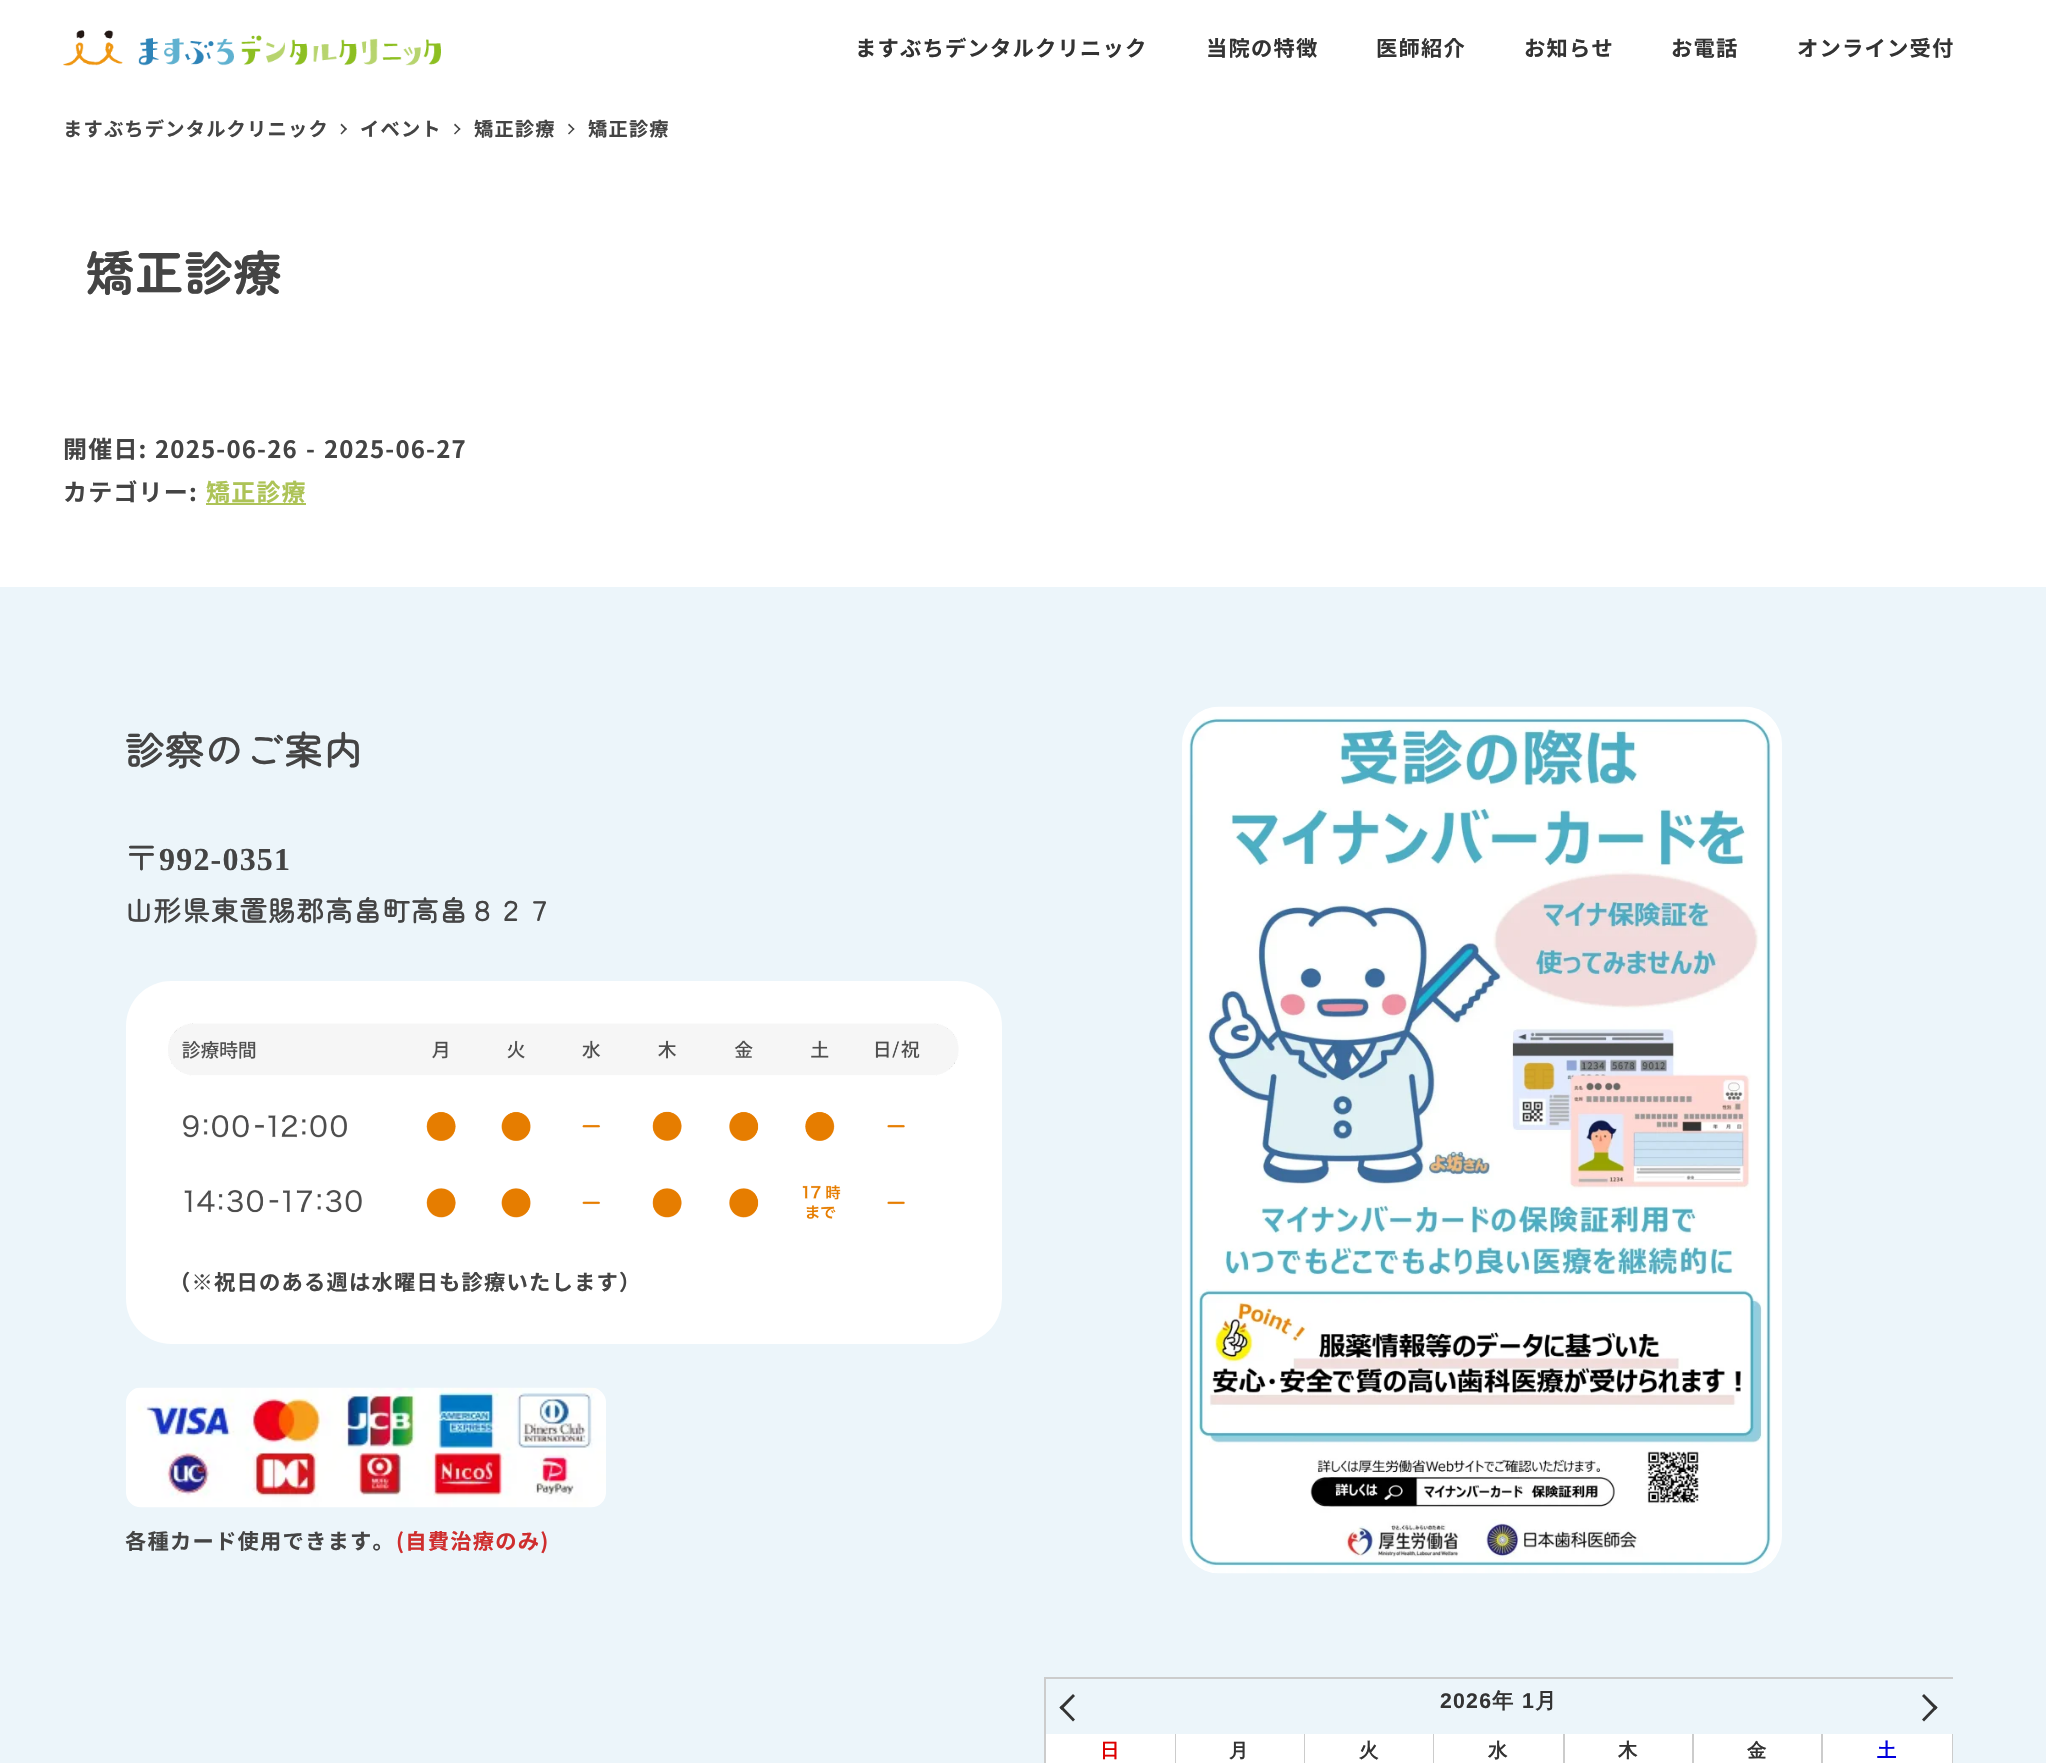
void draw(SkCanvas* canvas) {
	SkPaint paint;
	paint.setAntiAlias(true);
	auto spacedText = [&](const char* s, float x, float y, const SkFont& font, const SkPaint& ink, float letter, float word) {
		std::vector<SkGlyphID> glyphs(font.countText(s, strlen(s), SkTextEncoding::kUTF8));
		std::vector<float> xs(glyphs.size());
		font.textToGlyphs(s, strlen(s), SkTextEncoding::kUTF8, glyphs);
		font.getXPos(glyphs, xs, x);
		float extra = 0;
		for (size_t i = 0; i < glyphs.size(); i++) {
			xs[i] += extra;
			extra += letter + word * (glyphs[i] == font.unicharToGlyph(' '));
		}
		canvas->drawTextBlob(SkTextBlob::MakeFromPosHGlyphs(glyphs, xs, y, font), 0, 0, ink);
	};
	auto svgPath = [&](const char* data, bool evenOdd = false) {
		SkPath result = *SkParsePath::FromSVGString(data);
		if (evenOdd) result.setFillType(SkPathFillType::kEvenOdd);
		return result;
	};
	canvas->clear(0xffffffff);
	canvas->drawImageRect(SkImages::DeferredFromEncodedData(SkData::MakeFromFileName("img1.png")), SkRect::MakeXYWH(63, 30, 378, 36), SkSamplingOptions());
	SkFont f1(fontMgr->matchFamilyStyle("Noto Sans JP", SkFontStyle::Bold()), 21.3);
	f1.setSubpixel(true);
	paint.setColor(0xff333333);
	spacedText("ますぶちデンタルクリニック", 855, 56, f1, paint, 1.2, 0);
	spacedText("当院の特徴", 1206, 56, f1, paint, 1.2, 0);
	spacedText("医師紹介", 1376, 56, f1, paint, 1.2, 0);
	spacedText("お知らせ", 1524, 56, f1, paint, 1.2, 0);
	spacedText("お電話", 1671, 56, f1, paint, 1.2, 0);
	spacedText("オンライン受付", 1797, 56, f1, paint, 1.2, 0);
	SkFont f2(fontMgr->matchFamilyStyle("Noto Sans JP", SkFontStyle::Bold()), 19.25);
	f2.setSubpixel(true);
	paint.setColor(0xff444444);
	spacedText("ますぶちデンタルクリニック", 63, 136, f2, paint, 1.2, 0);
	canvas->drawPath(svgPath("M341.5 123.5L347 129L345.5 130L340.5 125Z"), paint);
	canvas->drawPath(svgPath("M345.5 128L347 129L341.5 134.5L340.5 133.5Z"), paint);
	spacedText("イベント", 360, 136, f2, paint, 1.2, 0);
	canvas->drawPath(svgPath("M455 123.5L460.5 129L459.5 130L454 125Z"), paint);
	canvas->drawPath(svgPath("M459.5 128L460.5 129L455 134.5L454 133.5Z"), paint);
	spacedText("矯正診療", 474, 136, f2, paint, 1.2, 0);
	canvas->drawPath(svgPath("M569 123.5L574.5 129L573.5 130L568 125Z"), paint);
	canvas->drawPath(svgPath("M573.5 128L574.5 129L569 134.5L568 133.5Z"), paint);
	spacedText("矯正診療", 588, 136, f2, paint, 1.2, 0);
	SkFont f3(fontMgr->matchFamilyStyle("Zen Maru Gothic", SkFontStyle::Bold()), 48);
	f3.setSubpixel(true);
	spacedText("矯正診療", 86, 291, f3, paint, 1.2, 0);
	SkFont f4(fontMgr->matchFamilyStyle("Noto Sans JP", SkFontStyle::Bold()), 24);
	f4.setSubpixel(true);
	spacedText("開催日:", 63, 458, f4, paint, 1.2, 0);
	spacedText("2025-06-26", 155, 458, f4, paint, 1.2, 0);
	spacedText("-", 306, 458, f4, paint, 1.2, 0);
	spacedText("2025-06-27", 324, 458, f4, paint, 1.2, 0);
	spacedText("カテゴリー:", 63, 501, f4, paint, 1.2, 0);
	paint.setColor(0xffadc357);
	canvas->drawRect(SkRect::MakeXYWH(206, 503, 100, 2), paint);
	spacedText("矯正診療", 206, 501, f4, paint, 1.2, 0);
	paint.setColor(0xffecf5fa);
	canvas->drawRect(SkRect::MakeXYWH(0, 587, 2046, 1176), paint);
	SkFont f5(fontMgr->matchFamilyStyle("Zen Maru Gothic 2", SkFontStyle::Bold()), 38.5);
	f5.setSubpixel(true);
	paint.setColor(0xff444444);
	spacedText("診察のご案内", 125, 765, f5, paint, 1.2, 0);
	SkFont f6(fontMgr->matchFamilyStyle("Zen Maru Gothic 2", SkFontStyle::Bold()), 32);
	f6.setSubpixel(true);
	spacedText("〒", 125, 870, f6, paint, 1.2, 0);
	SkFont f7(fontMgr->matchFamilyStyle("Liberation Serif", SkFontStyle::Bold()), 32);
	f7.setSubpixel(true);
	spacedText("992-0351", 159, 870, f7, paint, 1.2, 0);
	SkFont f8(fontMgr->matchFamilyStyle("Zen Maru Gothic 2", SkFontStyle::Bold()), 27.4);
	f8.setSubpixel(true);
	spacedText("山形県東置賜郡高畠町高畠８２７", 125, 921, f8, paint, 1.2, 0);
	paint.setColor(0xffffffff);
	canvas->drawRoundRect(SkRect::MakeXYWH(126, 981, 876, 363), 45, 45, paint);
	canvas->drawImageRect(SkImages::DeferredFromEncodedData(SkData::MakeFromFileName("img2.png")), SkRect::MakeXYWH(168, 1023, 791, 196), SkSamplingOptions());
	paint.setColor(0xff444444);
	spacedText("（※祝日のある週は水曜日も診療いたします）", 169, 1290, f1, paint, 1.2, 0);
	canvas->drawImageRect(SkImages::DeferredFromEncodedData(SkData::MakeFromFileName("img3.png")), SkRect::MakeXYWH(126, 1387, 480, 121), SkSamplingOptions());
	spacedText("各種カード使用できます。", 125, 1549, f1, paint, 1.2, 0);
	paint.setColor(0xffcf2e2e);
	spacedText("(自費治療のみ)", 396, 1549, f1, paint, 1.2, 0);
	canvas->drawImageRect(SkImages::DeferredFromEncodedData(SkData::MakeFromFileName("img4.png")), SkRect::MakeXYWH(1182, 706, 600, 868), SkSamplingOptions());
	paint.setColor(0xffcccccc);
	canvas->drawRect(SkRect::MakeXYWH(1044, 1677, 909, 2), paint);
	canvas->drawRect(SkRect::MakeXYWH(1044, 1677, 2, 86), paint);
	paint.setColor(0xff333333);
	canvas->drawPath(svgPath("M1061.5 1705.5L1075 1719.5L1073 1721.5L1059.5 1707.5Z"), paint);
	canvas->drawPath(svgPath("M1073 1694L1075 1696L1061.5 1710L1059.5 1707.5Z"), paint);
	SkFont f9(fontMgr->matchFamilyStyle("Liberation Sans", SkFontStyle::Bold()), 21.3);
	f9.setSubpixel(true);
	spacedText("2026", 1440, 1708, f9, paint, 1.2, 0);
	SkFont f10(fontMgr->matchFamilyStyle("WenQuanYi Zen Hei", SkFontStyle::Bold()), 21.3);
	f10.setSubpixel(true);
	spacedText("年", 1492, 1708, f10, paint, 1.2, 0);
	spacedText("1", 1522, 1708, f9, paint, 1.2, 0);
	spacedText("月", 1535, 1708, f10, paint, 1.2, 0);
	canvas->drawPath(svgPath("M1924 1694L1937.5 1707.5L1935.5 1710L1922 1696Z"), paint);
	canvas->drawPath(svgPath("M1935.5 1705.5L1937.5 1707.5L1924 1721.5L1922 1719.5Z"), paint);
	paint.setColor(0xffffffff);
	canvas->drawRect(SkRect::MakeXYWH(1046, 1734, 129, 29), paint);
	paint.setColor(0xffcccccc);
	canvas->drawRect(SkRect::MakeXYWH(1175, 1734, 1, 29), paint);
	SkFont f11(fontMgr->matchFamilyStyle("WenQuanYi Zen Hei", SkFontStyle::Bold()), 19.25);
	f11.setSubpixel(true);
	paint.setColor(0xffdd0000);
	spacedText("日", 1100, 1757, f11, paint, 1.2, 0);
	paint.setColor(0xffffffff);
	canvas->drawRect(SkRect::MakeXYWH(1176, 1734, 128, 29), paint);
	paint.setColor(0xffcccccc);
	canvas->drawRect(SkRect::MakeXYWH(1304, 1734, 1, 29), paint);
	paint.setColor(0xff333333);
	spacedText("月", 1229, 1757, f11, paint, 1.2, 0);
	paint.setColor(0xffffffff);
	canvas->drawRect(SkRect::MakeXYWH(1305, 1734, 128, 29), paint);
	paint.setColor(0xffcccccc);
	canvas->drawRect(SkRect::MakeXYWH(1433, 1734, 1, 29), paint);
	paint.setColor(0xff333333);
	spacedText("火", 1359, 1757, f11, paint, 1.2, 0);
	paint.setColor(0xffffffff);
	canvas->drawRect(SkRect::MakeXYWH(1434, 1734, 129, 29), paint);
	paint.setColor(0xffcccccc);
	canvas->drawRect(SkRect::MakeXYWH(1563, 1734, 2, 29), paint);
	paint.setColor(0xff333333);
	spacedText("水", 1488, 1757, f11, paint, 1.2, 0);
	paint.setColor(0xffffffff);
	canvas->drawRect(SkRect::MakeXYWH(1565, 1734, 127, 29), paint);
	paint.setColor(0xffcccccc);
	canvas->drawRect(SkRect::MakeXYWH(1692, 1734, 2, 29), paint);
	paint.setColor(0xff333333);
	spacedText("木", 1618, 1757, f11, paint, 1.2, 0);
	paint.setColor(0xffffffff);
	canvas->drawRect(SkRect::MakeXYWH(1694, 1734, 127, 29), paint);
	paint.setColor(0xffcccccc);
	canvas->drawRect(SkRect::MakeXYWH(1821, 1734, 2, 29), paint);
	paint.setColor(0xff333333);
	spacedText("金", 1747, 1757, f11, paint, 1.2, 0);
	paint.setColor(0xffffffff);
	canvas->drawRect(SkRect::MakeXYWH(1823, 1734, 129, 29), paint);
	paint.setColor(0xffcccccc);
	canvas->drawRect(SkRect::MakeXYWH(1952, 1734, 1, 29), paint);
	paint.setColor(0xff0000dd);
	spacedText("土", 1877, 1757, f11, paint, 1.2, 0);
}
